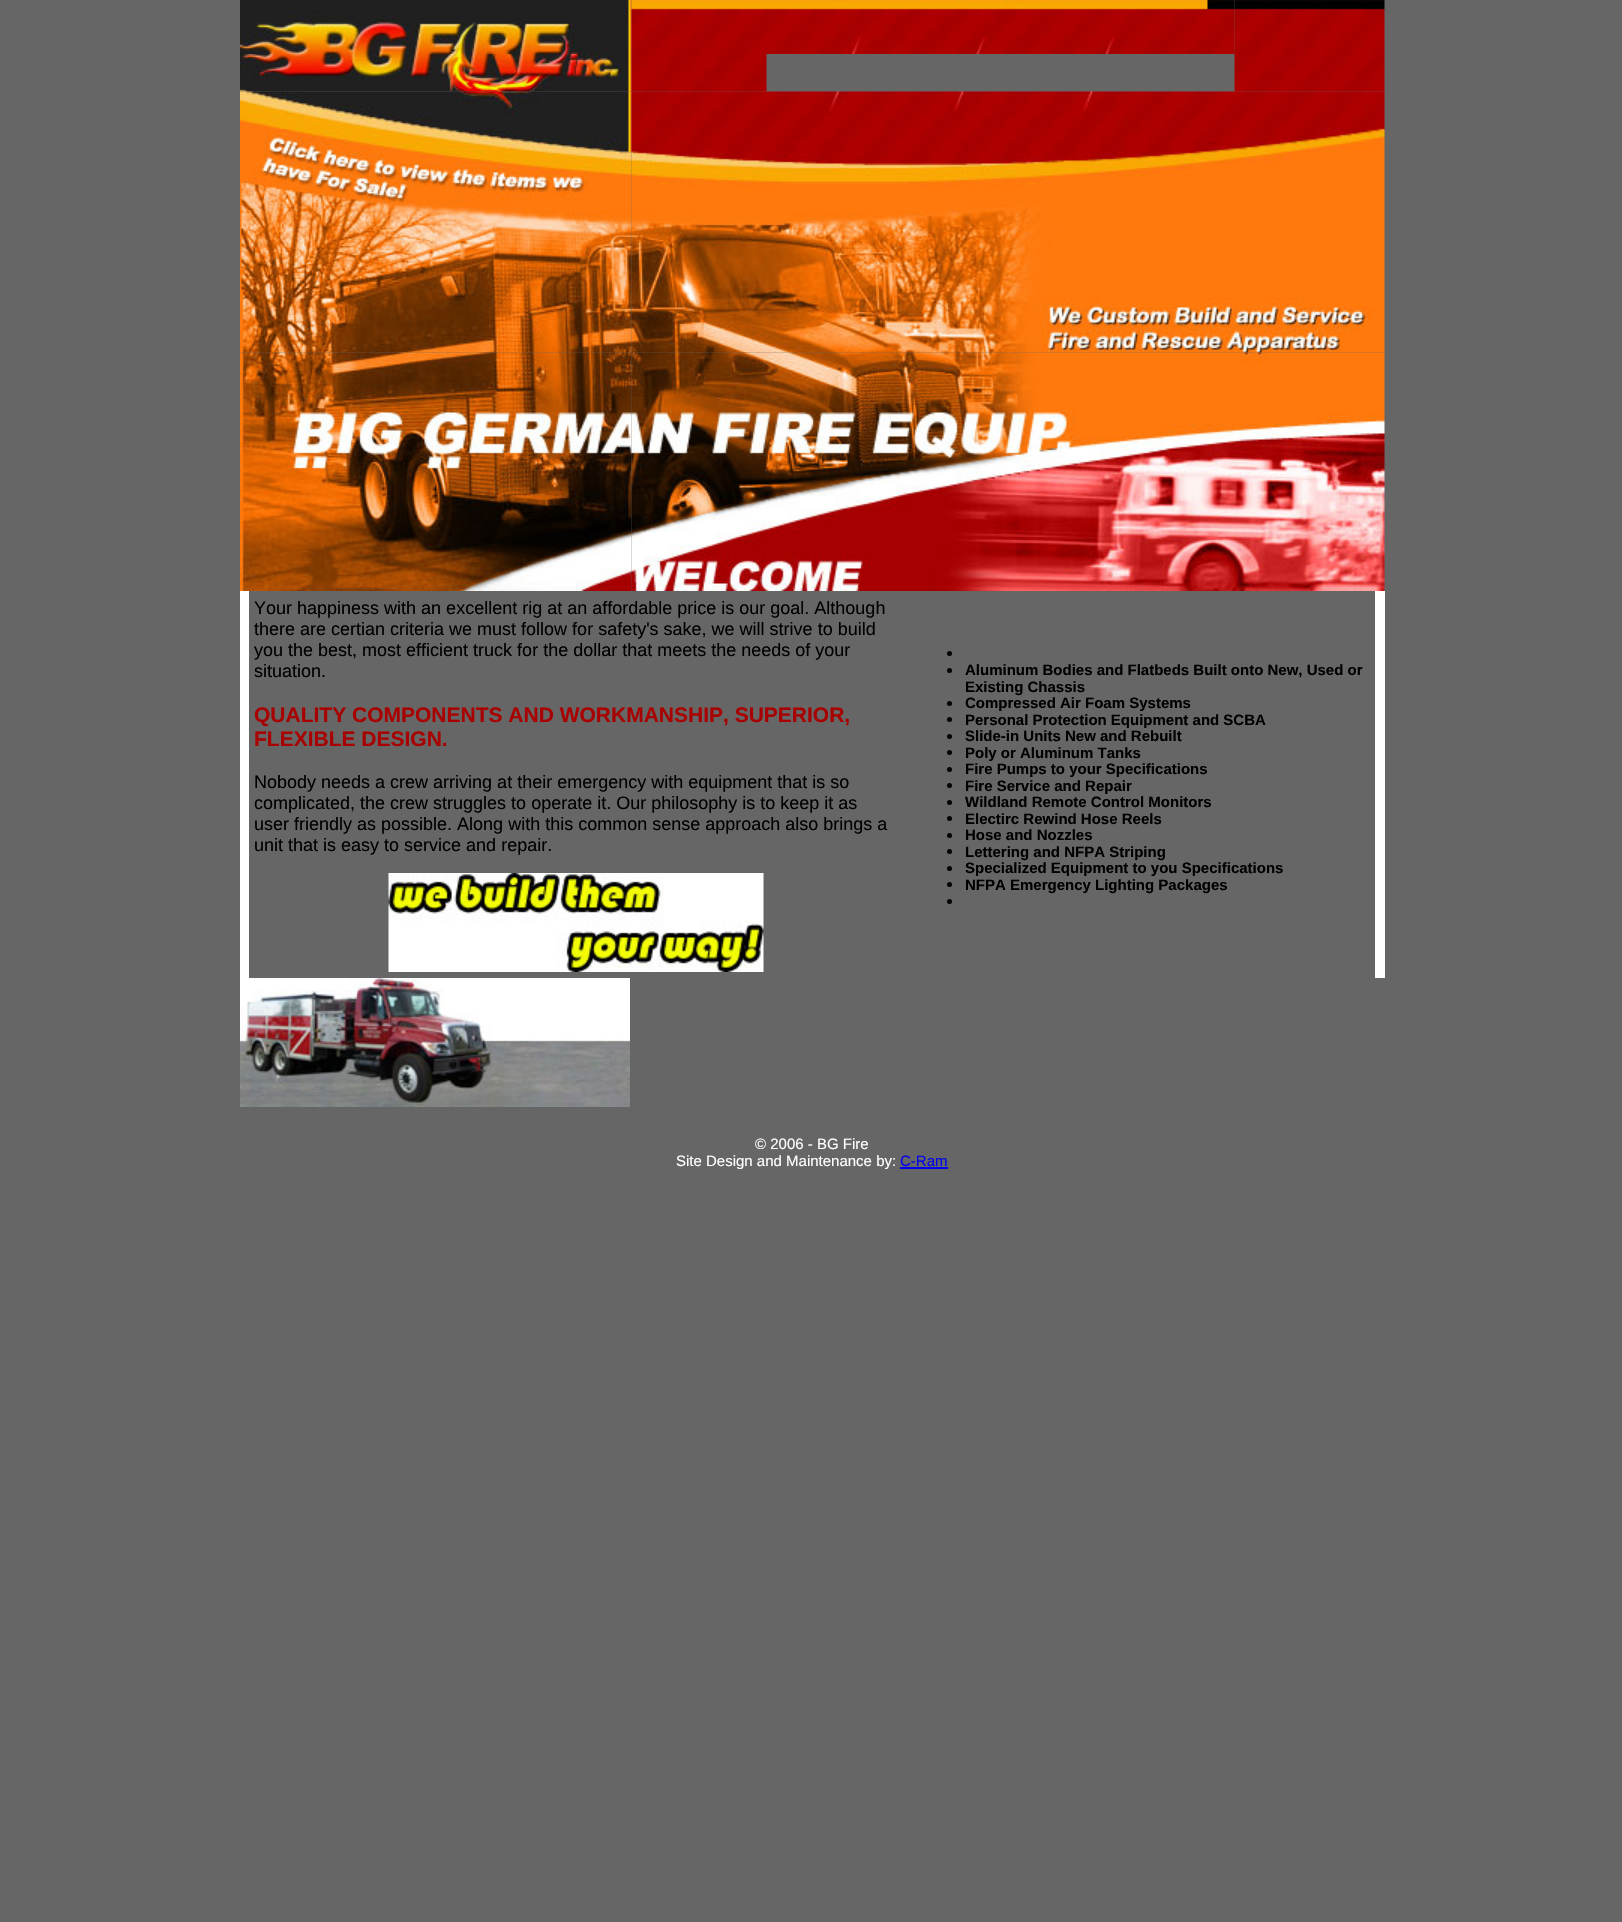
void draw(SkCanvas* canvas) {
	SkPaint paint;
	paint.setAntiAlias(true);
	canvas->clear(0xff666666);
	canvas->drawImageRect(SkImages::DeferredFromEncodedData(SkData::MakeFromFileName("img1.png")), SkRect::MakeXYWH(240, 0, 392, 54), SkSamplingOptions());
	canvas->drawImageRect(SkImages::DeferredFromEncodedData(SkData::MakeFromFileName("img2.png")), SkRect::MakeXYWH(631, 0, 604, 54), SkSamplingOptions());
	canvas->drawImageRect(SkImages::DeferredFromEncodedData(SkData::MakeFromFileName("img3.png")), SkRect::MakeXYWH(1234, 0, 151, 54), SkSamplingOptions());
	canvas->drawImageRect(SkImages::DeferredFromEncodedData(SkData::MakeFromFileName("img4.png")), SkRect::MakeXYWH(240, 54, 392, 38), SkSamplingOptions());
	canvas->drawImageRect(SkImages::DeferredFromEncodedData(SkData::MakeFromFileName("img5.png")), SkRect::MakeXYWH(631, 54, 136, 38), SkSamplingOptions());
	canvas->drawImageRect(SkImages::DeferredFromEncodedData(SkData::MakeFromFileName("img6.png")), SkRect::MakeXYWH(1234, 54, 151, 38), SkSamplingOptions());
	canvas->drawImageRect(SkImages::DeferredFromEncodedData(SkData::MakeFromFileName("img7.png")), SkRect::MakeXYWH(240, 91, 392, 262), SkSamplingOptions());
	canvas->drawImageRect(SkImages::DeferredFromEncodedData(SkData::MakeFromFileName("img8.png")), SkRect::MakeXYWH(631, 91, 754, 262), SkSamplingOptions());
	canvas->drawImageRect(SkImages::DeferredFromEncodedData(SkData::MakeFromFileName("img9.png")), SkRect::MakeXYWH(240, 352, 392, 239), SkSamplingOptions());
	canvas->drawImageRect(SkImages::DeferredFromEncodedData(SkData::MakeFromFileName("img10.png")), SkRect::MakeXYWH(631, 352, 754, 239), SkSamplingOptions());
	paint.setColor(0xffffffff);
	canvas->drawRect(SkRect::MakeXYWH(240, 591, 9, 387), paint);
	SkFont f1(fontMgr->matchFamilyStyle("Liberation Sans", SkFontStyle::Normal()), 18);
	f1.setSubpixel(true);
	paint.setColor(0xff000000);
	canvas->drawString("Your happiness with an excellent rig at an affordable price is our goal. Although", 254, 614, f1, paint);
	canvas->drawString("there are certian criteria we must follow for safety's sake, we will strive to build", 254, 635, f1, paint);
	canvas->drawString("you the best, most efficient truck for the dollar that meets the needs of your", 254, 656, f1, paint);
	canvas->drawString("situation.", 254, 677, f1, paint);
	SkFont f2(fontMgr->matchFamilyStyle("Liberation Sans", SkFontStyle::Bold()), 21);
	f2.setSubpixel(true);
	paint.setColor(0xffa80000);
	canvas->drawString("QUALITY COMPONENTS AND WORKMANSHIP, SUPERIOR,", 254, 722, f2, paint);
	canvas->drawString("FLEXIBLE DESIGN.", 254, 746, f2, paint);
	paint.setColor(0xff000000);
	canvas->drawString("Nobody needs a crew arriving at their emergency with equipment that is so", 254, 788, f1, paint);
	canvas->drawString("complicated, the crew struggles to operate it. Our philosophy is to keep it as", 254, 809, f1, paint);
	canvas->drawString("user friendly as possible. Along with this common sense approach also brings a", 254, 830, f1, paint);
	canvas->drawString("unit that is easy to service and repair.", 254, 851, f1, paint);
	canvas->drawImageRect(SkImages::DeferredFromEncodedData(SkData::MakeFromFileName("img11.png")), SkRect::MakeXYWH(388, 873, 376, 99), SkSamplingOptions());
	canvas->drawCircle(949.5, 653.5, 2.5, paint);
	canvas->drawCircle(949.5, 670.5, 2.5, paint);
	SkFont f3(fontMgr->matchFamilyStyle("Liberation Sans", SkFontStyle::Bold()), 15);
	f3.setSubpixel(true);
	canvas->drawString("Aluminum Bodies and Flatbeds Built onto New, Used or", 965, 675, f3, paint);
	canvas->drawString("Existing Chassis", 965, 692, f3, paint);
	canvas->drawCircle(949.5, 703.5, 2.5, paint);
	canvas->drawString("Compressed Air Foam Systems", 965, 708, f3, paint);
	canvas->drawCircle(949.5, 719.5, 2.5, paint);
	canvas->drawString("Personal Protection Equipment and SCBA", 965, 725, f3, paint);
	canvas->drawCircle(949.5, 736.5, 2.5, paint);
	canvas->drawString("Slide-in Units New and Rebuilt", 965, 741, f3, paint);
	canvas->drawCircle(949.5, 752.5, 2.5, paint);
	canvas->drawString("Poly or Aluminum Tanks", 965, 758, f3, paint);
	canvas->drawCircle(949.5, 769.5, 2.5, paint);
	canvas->drawString("Fire Pumps to your Specifications", 965, 774, f3, paint);
	canvas->drawCircle(949.5, 785.5, 2.5, paint);
	canvas->drawString("Fire Service and Repair", 965, 791, f3, paint);
	canvas->drawCircle(949.5, 802.5, 2.5, paint);
	canvas->drawString("Wildland Remote Control Monitors", 965, 807, f3, paint);
	canvas->drawCircle(949.5, 818.5, 2.5, paint);
	canvas->drawString("Electirc Rewind Hose Reels", 965, 824, f3, paint);
	canvas->drawCircle(949.5, 835.5, 2.5, paint);
	canvas->drawString("Hose and Nozzles", 965, 840, f3, paint);
	canvas->drawCircle(949.5, 851.5, 2.5, paint);
	canvas->drawString("Lettering and NFPA Striping", 965, 857, f3, paint);
	canvas->drawCircle(949.5, 868.5, 2.5, paint);
	canvas->drawString("Specialized Equipment to you Specifications", 965, 873, f3, paint);
	canvas->drawCircle(949.5, 884.5, 2.5, paint);
	canvas->drawString("NFPA Emergency Lighting Packages", 965, 890, f3, paint);
	canvas->drawCircle(949.5, 901.5, 2.5, paint);
	paint.setColor(0xffffffff);
	canvas->drawRect(SkRect::MakeXYWH(1375, 591, 10, 387), paint);
	canvas->drawImageRect(SkImages::DeferredFromEncodedData(SkData::MakeFromFileName("img12.png")), SkRect::MakeXYWH(240, 978, 390, 129), SkSamplingOptions());
	SkFont f4(fontMgr->matchFamilyStyle("Liberation Sans", SkFontStyle::Normal()), 15);
	f4.setSubpixel(true);
	canvas->drawString("© 2006 - BG Fire", 755, 1149, f4, paint);
	canvas->drawString("Site Design and Maintenance by:", 676, 1166, f4, paint);
	paint.setColor(0xff0000ee);
	canvas->drawString("C-Ram", 900, 1166, f4, paint);
	canvas->drawRect(SkRect::MakeXYWH(900, 1167, 48, 2), paint);
}
